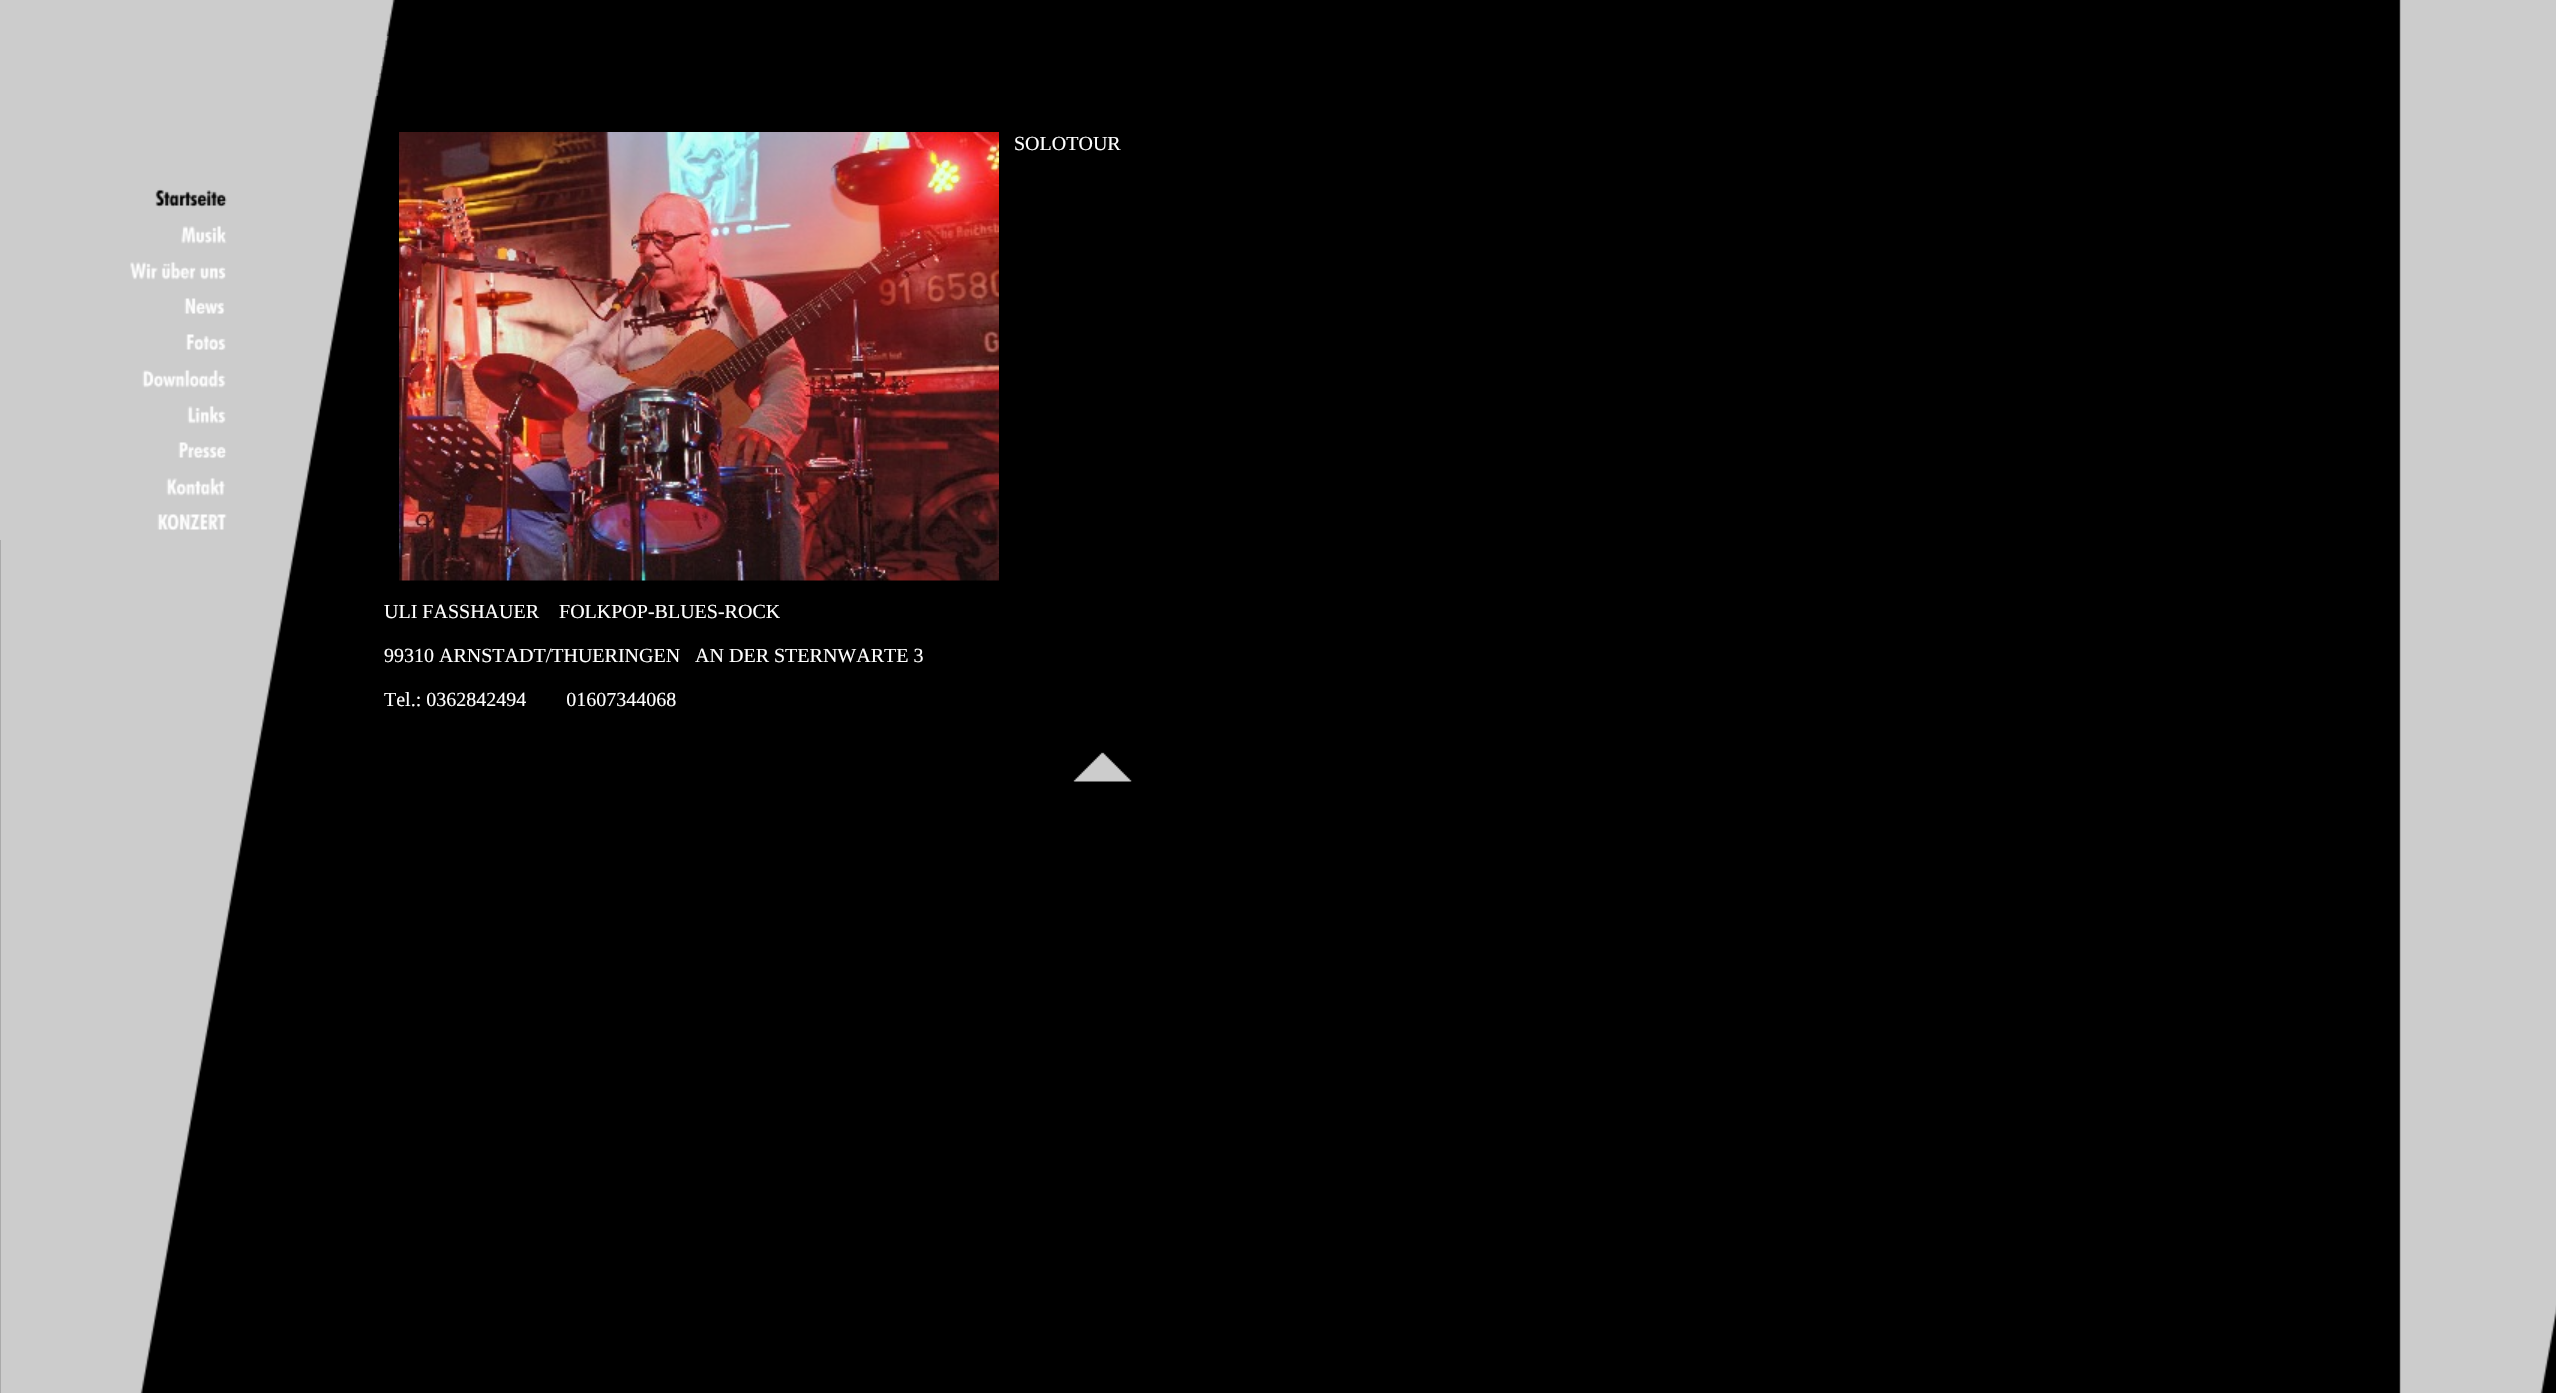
void draw(SkCanvas* canvas) {
	SkPaint paint;
	paint.setAntiAlias(true);
	canvas->clear(0xffffffff);
	canvas->drawImageRect(SkImages::DeferredFromEncodedData(SkData::MakeFromFileName("img1.png")), SkRect::MakeXYWH(0, 0, 2556, 1393), SkSamplingOptions());
	paint.setColor(0xffcccccc);
	canvas->drawRect(SkRect::MakeXYWH(0, 0, 1, 180), paint);
	canvas->drawImageRect(SkImages::DeferredFromEncodedData(SkData::MakeFromFileName("img2.png")), SkRect::MakeXYWH(0, 180, 227, 36), SkSamplingOptions());
	canvas->drawImageRect(SkImages::DeferredFromEncodedData(SkData::MakeFromFileName("img3.png")), SkRect::MakeXYWH(0, 216, 264, 36), SkSamplingOptions());
	canvas->drawImageRect(SkImages::DeferredFromEncodedData(SkData::MakeFromFileName("img4.png")), SkRect::MakeXYWH(0, 252, 264, 36), SkSamplingOptions());
	canvas->drawImageRect(SkImages::DeferredFromEncodedData(SkData::MakeFromFileName("img5.png")), SkRect::MakeXYWH(0, 288, 264, 36), SkSamplingOptions());
	canvas->drawImageRect(SkImages::DeferredFromEncodedData(SkData::MakeFromFileName("img6.png")), SkRect::MakeXYWH(0, 324, 264, 36), SkSamplingOptions());
	canvas->drawImageRect(SkImages::DeferredFromEncodedData(SkData::MakeFromFileName("img7.png")), SkRect::MakeXYWH(0, 360, 264, 36), SkSamplingOptions());
	canvas->drawImageRect(SkImages::DeferredFromEncodedData(SkData::MakeFromFileName("img8.png")), SkRect::MakeXYWH(0, 396, 264, 36), SkSamplingOptions());
	canvas->drawImageRect(SkImages::DeferredFromEncodedData(SkData::MakeFromFileName("img9.png")), SkRect::MakeXYWH(0, 432, 264, 36), SkSamplingOptions());
	canvas->drawImageRect(SkImages::DeferredFromEncodedData(SkData::MakeFromFileName("img10.png")), SkRect::MakeXYWH(0, 468, 264, 36), SkSamplingOptions());
	canvas->drawImageRect(SkImages::DeferredFromEncodedData(SkData::MakeFromFileName("img11.png")), SkRect::MakeXYWH(0, 504, 264, 36), SkSamplingOptions());
	canvas->drawImageRect(SkImages::DeferredFromEncodedData(SkData::MakeFromFileName("img12.png")), SkRect::MakeXYWH(375, 36, 14, 60), SkSamplingOptions());
	canvas->drawImageRect(SkImages::DeferredFromEncodedData(SkData::MakeFromFileName("img13.png")), SkRect::MakeXYWH(399, 132, 600, 449), SkSamplingOptions());
	SkFont f1(fontMgr->matchFamilyStyle("Liberation Serif", SkFontStyle::Normal()), 20);
	f1.setSubpixel(true);
	paint.setColor(0xffffffff);
	canvas->drawString("SOLOTOUR", 1014, 150, f1, paint);
	canvas->drawString("ULI FASSHAUER    FOLKPOP-BLUES-ROCK", 384, 618, f1, paint);
	canvas->drawString("99310 ARNSTADT/THUERINGEN   AN DER STERNWARTE 3", 384, 662, f1, paint);
	canvas->drawString("Tel.: 0362842494        01607344068", 384, 706, f1, paint);
	canvas->drawImageRect(SkImages::DeferredFromEncodedData(SkData::MakeFromFileName("img14.png")), SkRect::MakeXYWH(1073, 752, 59, 30), SkSamplingOptions());
}
